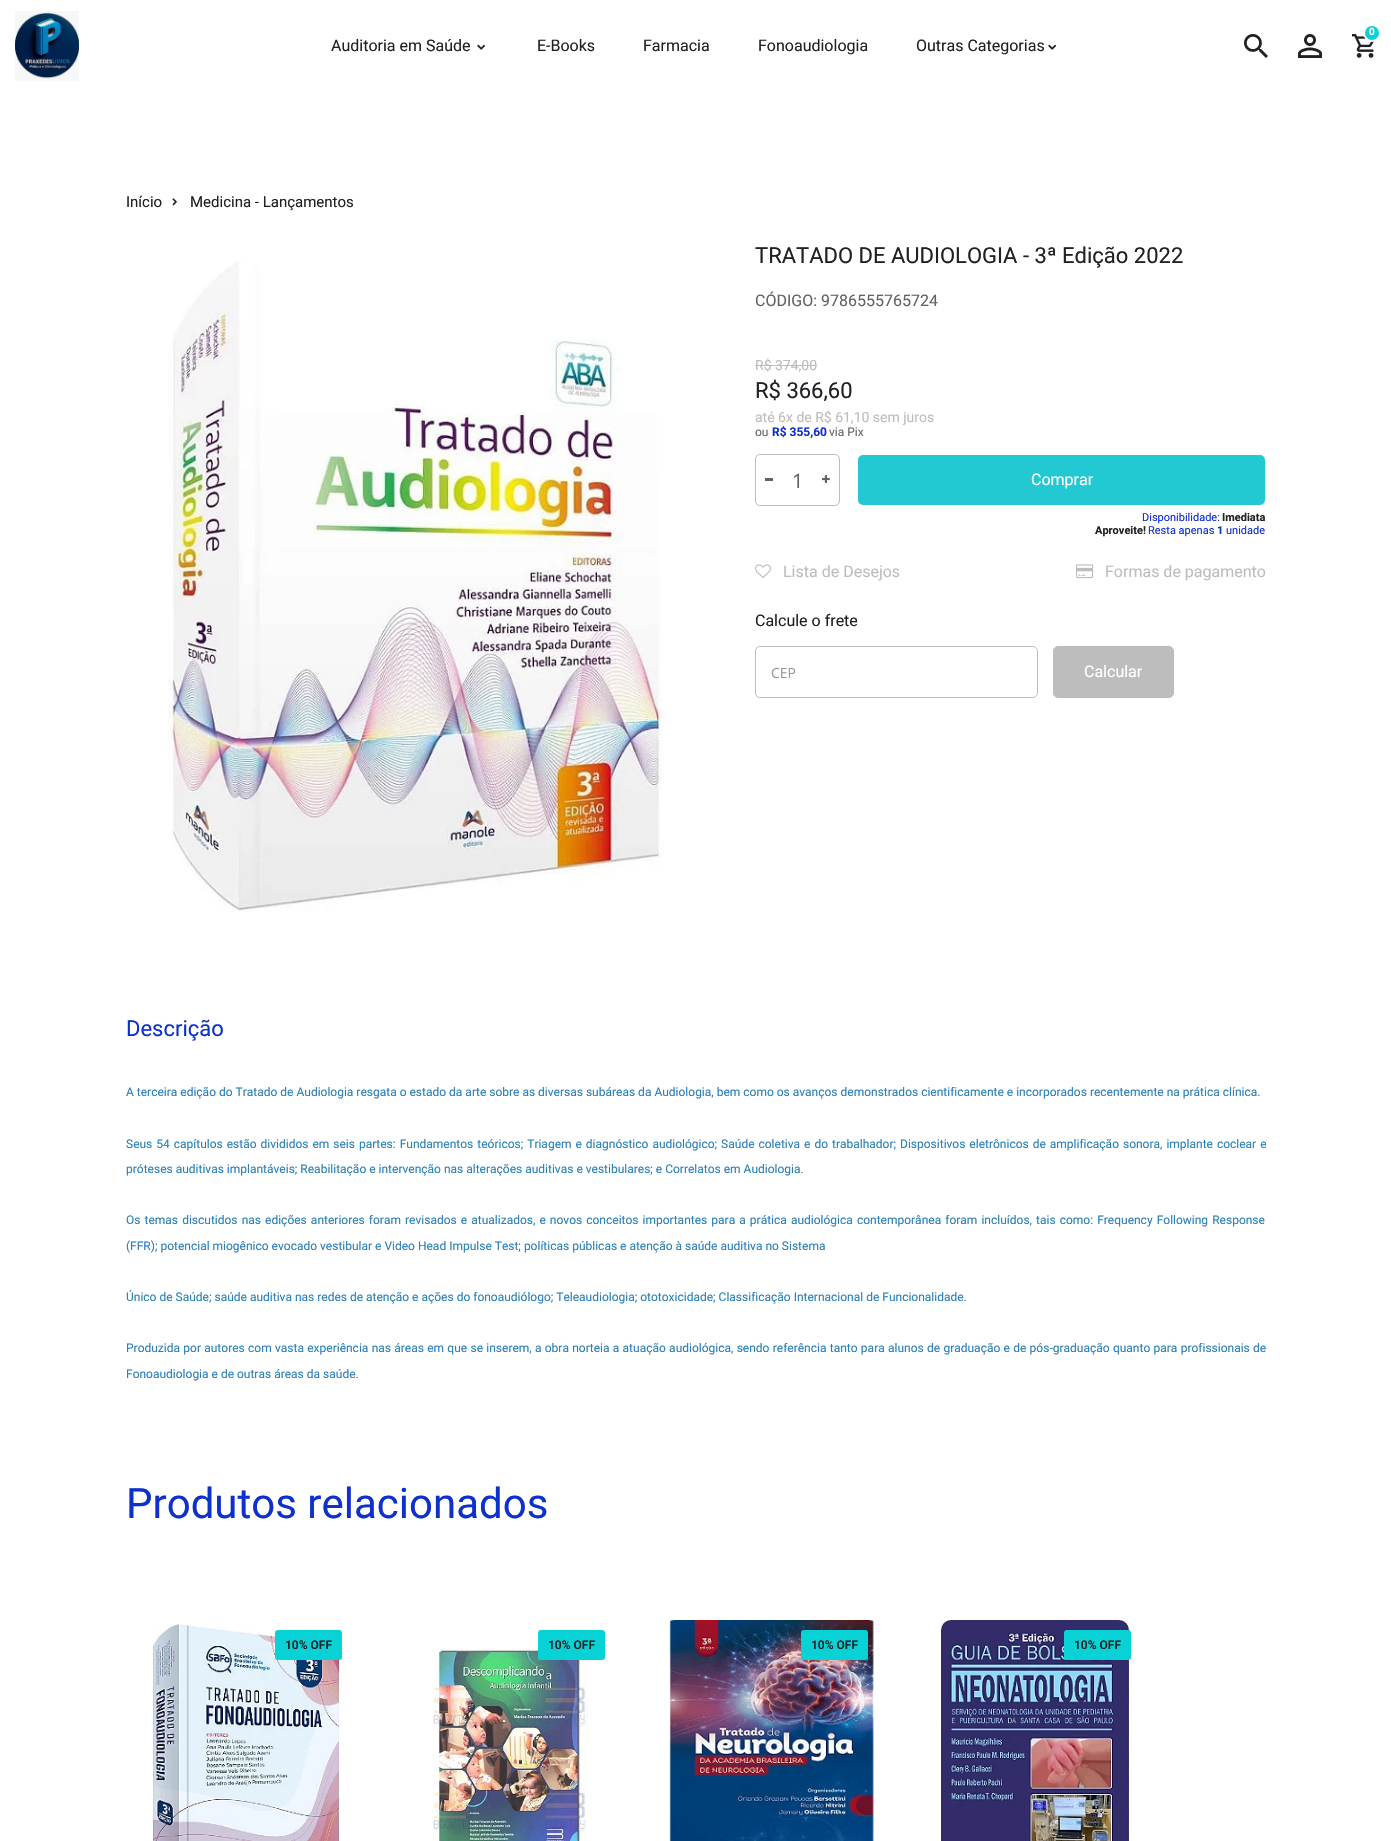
void draw(SkCanvas* canvas) {
	SkPaint paint;
	paint.setAntiAlias(true);
	auto spacedText = [&](const char* s, float x, float y, const SkFont& font, const SkPaint& ink, float letter, float word) {
		std::vector<SkGlyphID> glyphs(font.countText(s, strlen(s), SkTextEncoding::kUTF8));
		std::vector<float> xs(glyphs.size());
		font.textToGlyphs(s, strlen(s), SkTextEncoding::kUTF8, glyphs);
		font.getXPos(glyphs, xs, x);
		float extra = 0;
		for (size_t i = 0; i < glyphs.size(); i++) {
			xs[i] += extra;
			extra += letter + word * (glyphs[i] == font.unicharToGlyph(' '));
		}
		canvas->drawTextBlob(SkTextBlob::MakeFromPosHGlyphs(glyphs, xs, y, font), 0, 0, ink);
	};
	canvas->clear(0xffffffff);
	canvas->drawImageRect(SkImages::DeferredFromEncodedData(SkData::MakeFromFileName("img1.png")), SkRect::MakeXYWH(15, 11, 64, 70), SkSamplingOptions());
	canvas->drawImageRect(SkImages::DeferredFromEncodedData(SkData::MakeFromFileName("img2.png")), SkRect::MakeXYWH(1352, 34, 22, 24), SkSamplingOptions());
	paint.setColor(0xff09d2d7);
	canvas->drawCircle(1372, 33, 8, paint);
	paint.setStroke(true);
	paint.setStrokeWidth(2);
	paint.setColor(0xffffffff);
	canvas->drawCircle(1372, 33, 8, paint);
	SkFont f1(fontMgr->matchFamilyStyle("Roboto", SkFontStyle(600, SkFontStyle::kNormal_Width, SkFontStyle::kUpright_Slant)), 10);
	f1.setSubpixel(true);
	paint.setStroke(false);
	canvas->drawString("0", 1369, 35, f1, paint);
	canvas->drawImageRect(SkImages::DeferredFromEncodedData(SkData::MakeFromFileName("img3.png")), SkRect::MakeXYWH(1244, 34, 24, 24), SkSamplingOptions());
	canvas->drawImageRect(SkImages::DeferredFromEncodedData(SkData::MakeFromFileName("img4.png")), SkRect::MakeXYWH(1298, 34, 24, 24), SkSamplingOptions());
	SkFont f2(fontMgr->matchFamilyStyle("Roboto", SkFontStyle::Normal()), 16);
	f2.setSubpixel(true);
	paint.setColor(0xff202124);
	canvas->drawString("Auditoria em Saúde", 331, 51, f2, paint);
	canvas->drawImageRect(SkImages::DeferredFromEncodedData(SkData::MakeFromFileName("img5.png")), SkRect::MakeXYWH(477, 44, 8, 6), SkSamplingOptions());
	canvas->drawString("E-Books", 537, 51, f2, paint);
	canvas->drawString("Farmacia", 643, 51, f2, paint);
	canvas->drawString("Fonoaudiologia", 758, 51, f2, paint);
	canvas->drawString("Outras Categorias", 916, 51, f2, paint);
	canvas->drawImageRect(SkImages::DeferredFromEncodedData(SkData::MakeFromFileName("img5.png")), SkRect::MakeXYWH(1048, 44, 8, 6), SkSamplingOptions());
	SkFont f3(fontMgr->matchFamilyStyle("Roboto", SkFontStyle::Normal()), 15);
	f3.setSubpixel(true);
	canvas->drawString("Início", 126, 207, f3, paint);
	canvas->drawImageRect(SkImages::DeferredFromEncodedData(SkData::MakeFromFileName("img6.png")), SkRect::MakeXYWH(172, 198, 5, 8), SkSamplingOptions());
	canvas->drawString("Medicina - Lançamentos", 190, 207, f3, paint);
	canvas->drawImageRect(SkImages::DeferredFromEncodedData(SkData::MakeFromFileName("img7.png")), SkRect::MakeXYWH(168, 261, 497, 651), SkSamplingOptions());
	SkFont f4(fontMgr->matchFamilyStyle("Roboto", SkFontStyle::Normal()), 22);
	f4.setSubpixel(true);
	canvas->drawString("TRATADO DE AUDIOLOGIA - 3ª Edição 2022", 755, 263, f4, paint);
	paint.setColor(0xff5f6368);
	canvas->drawString("CÓDIGO: 9786555765724", 755, 306, f2, paint);
	SkFont f5(fontMgr->matchFamilyStyle("Roboto", SkFontStyle::Normal()), 14);
	f5.setSubpixel(true);
	paint.setColor(0xffbdbdbd);
	canvas->drawString("R$ 374,00", 755, 370, f5, paint);
	canvas->drawRect(SkRect::MakeXYWH(755, 365, 62, 1), paint);
	paint.setColor(0xff202124);
	canvas->drawString("R$ 366,60", 755, 398, f4, paint);
	paint.setColor(0xffbdbdbd);
	canvas->drawString("até 6x de R$ 61,10 sem juros", 755, 422, f5, paint);
	SkFont f6(fontMgr->matchFamilyStyle("Roboto", SkFontStyle::Normal()), 12);
	f6.setSubpixel(true);
	paint.setColor(0xff666666);
	canvas->drawString("ou", 755, 436, f6, paint);
	SkFont f7(fontMgr->matchFamilyStyle("Roboto", SkFontStyle::Bold()), 12);
	f7.setSubpixel(true);
	paint.setColor(0xff0e31cc);
	canvas->drawString("R$ 355,60", 772, 436, f7, paint);
	paint.setColor(0xff666666);
	canvas->drawString("via Pix", 829, 436, f6, paint);
	paint.setStroke(true);
	paint.setStrokeWidth(1);
	paint.setColor(0xffbdbdbd);
	canvas->drawRoundRect(SkRect::MakeXYWH(755.5, 454.5, 84, 51), 4.5, 4.5, paint);
	paint.setStroke(false);
	paint.setColor(0xff5f6368);
	canvas->drawRect(SkRect::MakeXYWH(765, 478, 8, 3), paint);
	SkFont f8(fontMgr->matchFamilyStyle("Open Sans", SkFontStyle::Normal()), 20);
	f8.setSubpixel(true);
	canvas->drawString("1", 792, 488, f8, paint);
	canvas->drawImageRect(SkImages::DeferredFromEncodedData(SkData::MakeFromFileName("img8.png")), SkRect::MakeXYWH(822, 475, 8, 8), SkSamplingOptions());
	paint.setColor(0xff23c9d2);
	canvas->drawRoundRect(SkRect::MakeXYWH(858, 455, 407, 50), 5, 5, paint);
	paint.setColor(0xffffffff);
	canvas->drawString("Comprar", 1031, 485, f2, paint);
	SkFont f9(fontMgr->matchFamilyStyle("Roboto", SkFontStyle::Normal()), 11);
	f9.setSubpixel(true);
	paint.setColor(0xff0e31cc);
	canvas->drawString("Disponibilidade:", 1142, 521, f9, paint);
	SkFont f10(fontMgr->matchFamilyStyle("Roboto", SkFontStyle::Bold()), 11);
	f10.setSubpixel(true);
	paint.setColor(0xff202124);
	canvas->drawString("Imediata", 1222, 521, f10, paint);
	canvas->drawString("Aproveite!", 1095, 534, f10, paint);
	paint.setColor(0xff0e31cc);
	canvas->drawString("Resta apenas", 1148, 534, f9, paint);
	canvas->drawString("1", 1217, 534, f10, paint);
	canvas->drawString("unidade", 1226, 534, f9, paint);
	canvas->drawImageRect(SkImages::DeferredFromEncodedData(SkData::MakeFromFileName("img9.png")), SkRect::MakeXYWH(755, 564, 16, 14), SkSamplingOptions());
	paint.setColor(0xffbdbdbd);
	canvas->drawString("Lista de Desejos", 783, 577, f2, paint);
	canvas->drawImageRect(SkImages::DeferredFromEncodedData(SkData::MakeFromFileName("img10.png")), SkRect::MakeXYWH(1076, 564, 18, 15), SkSamplingOptions());
	canvas->drawString("Formas de pagamento", 1105, 577, f2, paint);
	paint.setColor(0xff202124);
	canvas->drawString("Calcule o frete", 755, 626, f2, paint);
	paint.setStroke(true);
	paint.setColor(0xffbdbdbd);
	canvas->drawRoundRect(SkRect::MakeXYWH(755.5, 646.5, 282, 51), 4.5, 4.5, paint);
	SkFont f11(fontMgr->matchFamilyStyle("Open Sans", SkFontStyle::Normal()), 14);
	f11.setSubpixel(true);
	paint.setStroke(false);
	paint.setColor(0xff999999);
	canvas->drawString("CEP", 771, 678, f11, paint);
	paint.setColor(0xffbdbdbd);
	canvas->drawRoundRect(SkRect::MakeXYWH(1053.5, 646.5, 120, 51), 4.5, 4.5, paint);
	paint.setStroke(true);
	canvas->drawRoundRect(SkRect::MakeXYWH(1053.5, 646.5, 120, 51), 4.5, 4.5, paint);
	paint.setStroke(false);
	paint.setColor(0xffffffff);
	canvas->drawString("Calcular", 1084, 677, f2, paint);
	paint.setColor(0xff0e31cc);
	canvas->drawString("Descrição", 126, 1036, f4, paint);
	paint.setColor(0xff2980b9);
	canvas->drawString("A terceira edição do Tratado de Audiologia resgata o estado da arte sobre as diversas subáreas da Audiologia, bem como os avanços demonstrados cientificamente e incorporados recentemente na prática clínica.", 126, 1096, f6, paint);
	spacedText("Seus 54 capítulos estão divididos em seis partes: Fundamentos teóricos; Triagem e diagnóstico audiológico; Saúde coletiva e do trabalhador; Dispositivos eletrônicos de amplificação sonora, implante coclear e", 126, 1148, f6, paint, 0, 1);
	canvas->drawString("próteses auditivas implantáveis; Reabilitação e intervenção nas alterações auditivas e vestibulares; e Correlatos em Audiologia.", 126, 1173, f6, paint);
	spacedText("Os temas discutidos nas edições anteriores foram revisados e atualizados, e novos conceitos importantes para a prática audiológica contemporânea foram incluídos, tais como: Frequency Following Response", 126, 1224, f6, paint, 0, 1.1);
	canvas->drawString("(FFR); potencial miogênico evocado vestibular e Video Head Impulse Test; políticas públicas e atenção à saúde auditiva no Sistema", 126, 1250, f6, paint);
	canvas->drawString("Único de Saúde; saúde auditiva nas redes de atenção e ações do fonoaudiólogo; Teleaudiologia; ototoxicidade; Classificação Internacional de Funcionalidade.", 126, 1301, f6, paint);
	spacedText("Produzida por autores com vasta experiência nas áreas em que se inserem, a obra norteia a atuação audiológica, sendo referência tanto para alunos de graduação e de pós-graduação quanto para profissionais de", 126, 1352, f6, paint, 0, 0.3);
	canvas->drawString("Fonoaudiologia e de outras áreas da saúde.", 126, 1378, f6, paint);
	SkFont f12(fontMgr->matchFamilyStyle("Roboto", SkFontStyle::Normal()), 42);
	f12.setSubpixel(true);
	paint.setColor(0xff0e31cc);
	canvas->drawString("Produtos relacionados", 126, 1518, f12, paint);
	canvas->drawImageRect(SkImages::DeferredFromEncodedData(SkData::MakeFromFileName("img11.png")), SkRect::MakeXYWH(151, 1623, 194, 218), SkSamplingOptions());
	paint.setColor(0xff09d2d7);
	canvas->drawRoundRect(SkRect::MakeXYWH(275, 1630, 67, 30), 3, 3, paint);
	SkFont f13(fontMgr->matchFamilyStyle("Roboto", SkFontStyle(600, SkFontStyle::kNormal_Width, SkFontStyle::kUpright_Slant)), 12);
	f13.setSubpixel(true);
	paint.setColor(0xff202124);
	canvas->drawString("10% OFF", 285, 1649, f13, paint);
	canvas->drawImageRect(SkImages::DeferredFromEncodedData(SkData::MakeFromFileName("img12.png")), SkRect::MakeXYWH(432, 1649, 156, 192), SkSamplingOptions());
	paint.setColor(0xff09d2d7);
	canvas->drawRoundRect(SkRect::MakeXYWH(538, 1630, 67, 30), 3, 3, paint);
	paint.setColor(0xff202124);
	canvas->drawString("10% OFF", 548, 1649, f13, paint);
	canvas->drawImageRect(SkImages::DeferredFromEncodedData(SkData::MakeFromFileName("img13.png")), SkRect::MakeXYWH(669, 1620, 205, 221), SkSamplingOptions());
	paint.setColor(0xff09d2d7);
	canvas->drawRoundRect(SkRect::MakeXYWH(801, 1630, 67, 30), 3, 3, paint);
	paint.setColor(0xff202124);
	canvas->drawString("10% OFF", 811, 1649, f13, paint);
	canvas->drawImageRect(SkImages::DeferredFromEncodedData(SkData::MakeFromFileName("img14.png")), SkRect::MakeXYWH(941, 1620, 188, 221), SkSamplingOptions());
	paint.setColor(0xff09d2d7);
	canvas->drawRoundRect(SkRect::MakeXYWH(1064, 1630, 67, 30), 3, 3, paint);
	paint.setColor(0xff202124);
	canvas->drawString("10% OFF", 1074, 1649, f13, paint);
}
